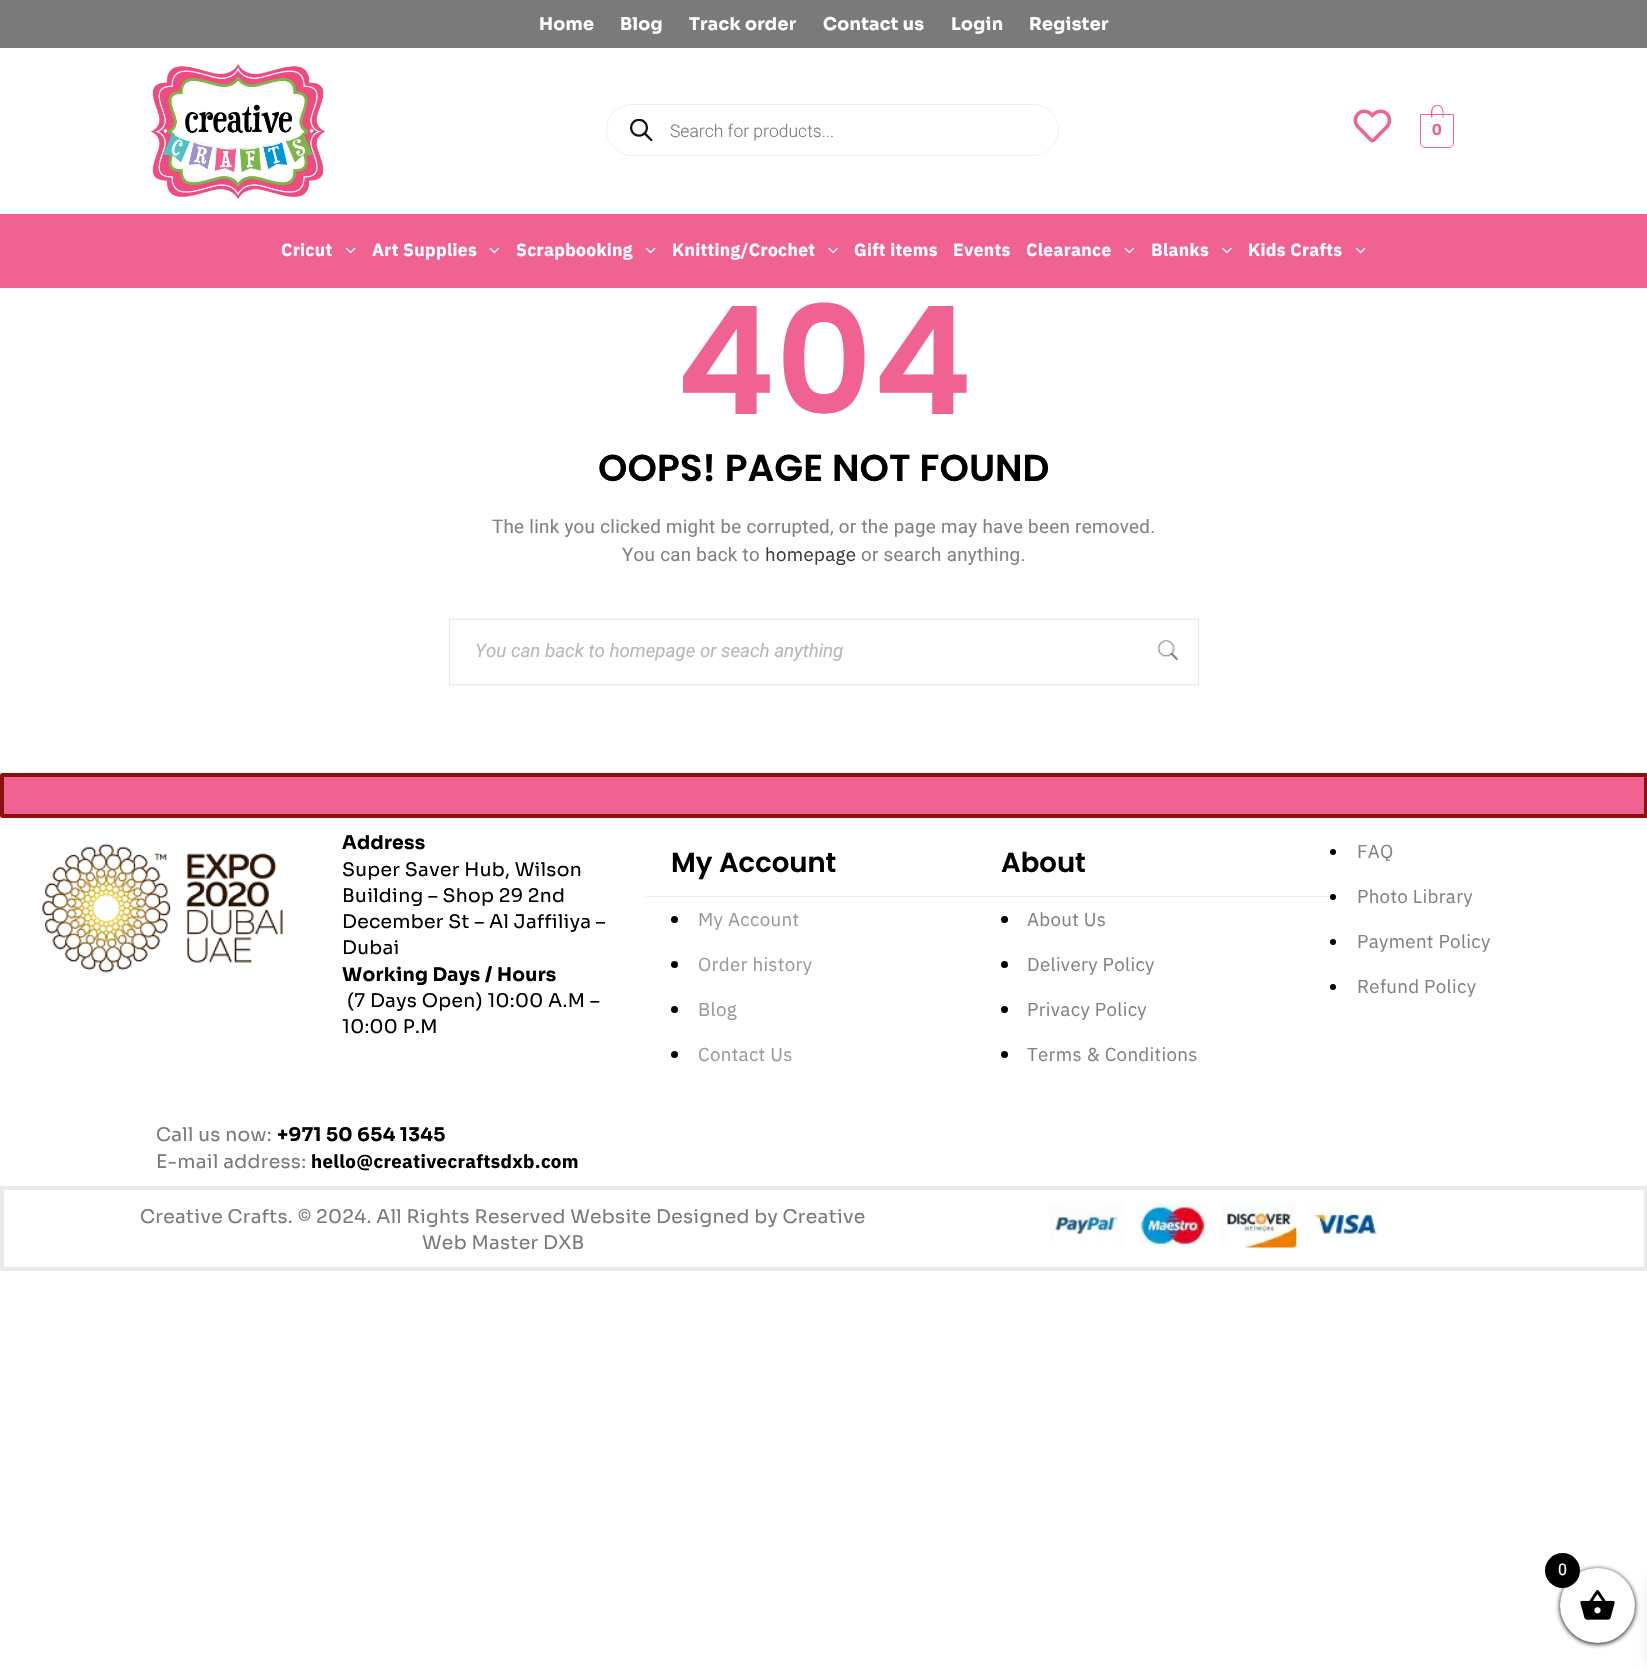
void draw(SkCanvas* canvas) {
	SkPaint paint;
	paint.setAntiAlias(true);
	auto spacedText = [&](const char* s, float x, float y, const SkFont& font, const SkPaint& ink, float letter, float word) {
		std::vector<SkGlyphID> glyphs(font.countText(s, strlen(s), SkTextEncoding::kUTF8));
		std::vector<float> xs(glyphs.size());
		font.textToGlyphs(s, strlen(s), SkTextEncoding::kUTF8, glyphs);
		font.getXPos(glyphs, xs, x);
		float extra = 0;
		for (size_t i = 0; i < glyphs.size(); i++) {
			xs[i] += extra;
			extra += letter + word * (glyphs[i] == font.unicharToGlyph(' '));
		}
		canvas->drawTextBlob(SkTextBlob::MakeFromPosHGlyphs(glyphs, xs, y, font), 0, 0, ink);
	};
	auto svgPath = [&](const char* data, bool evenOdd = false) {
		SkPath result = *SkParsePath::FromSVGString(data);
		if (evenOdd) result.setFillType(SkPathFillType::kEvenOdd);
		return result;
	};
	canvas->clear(0xffffffff);
	paint.setColor(0xff7a7a7a);
	canvas->drawRect(SkRect::MakeXYWH(0, 0, 1647, 48), paint);
	SkFont f1(fontMgr->matchFamilyStyle("Sora", SkFontStyle::Bold()), 17.5);
	f1.setSubpixel(true);
	paint.setColor(0xffffffff);
	spacedText("Home", 539, 30, f1, paint, 0.3, 0);
	spacedText("Blog", 620, 30, f1, paint, 0.3, 0);
	spacedText("Track order", 689, 30, f1, paint, 0.3, 0);
	spacedText("Contact us", 823, 30, f1, paint, 0.3, 0);
	spacedText("Login", 951, 30, f1, paint, 0.3, 0);
	spacedText("Register", 1029, 30, f1, paint, 0.3, 0);
	canvas->drawImageRect(SkImages::DeferredFromEncodedData(SkData::MakeFromFileName("img1.png")), SkRect::MakeXYWH(151, 64, 175, 135), SkSamplingOptions());
	paint.setStroke(true);
	paint.setStrokeWidth(1);
	paint.setColor(0xffeeeeee);
	canvas->drawRoundRect(SkRect::MakeXYWH(606.5, 104.5, 452, 51), 25.5, 25.5, paint);
	paint.setStroke(false);
	paint.setColor(0xffffffff);
	canvas->drawRoundRect(SkRect::MakeXYWH(608, 105, 450, 50), 25, 25, paint);
	canvas->drawImageRect(SkImages::DeferredFromEncodedData(SkData::MakeFromFileName("img2.png")), SkRect::MakeXYWH(630, 119, 23, 22), SkSamplingOptions());
	SkFont f2(fontMgr->matchFamilyStyle("Roboto", SkFontStyle(300, SkFontStyle::kNormal_Width, SkFontStyle::kUpright_Slant)), 17.5);
	f2.setSubpixel(true);
	paint.setColor(0xff7a7a7a);
	canvas->drawString("Search for products...", 670, 137, f2, paint);
	canvas->drawImageRect(SkImages::DeferredFromEncodedData(SkData::MakeFromFileName("img3.png")), SkRect::MakeXYWH(1353, 109, 39, 34), SkSamplingOptions());
	paint.setStroke(true);
	paint.setColor(0xfff06292);
	canvas->drawPath(svgPath("M1420.5 114.5H1453.5V143C1453.5 145.5 1451.5 147.5 1449 147.5H1425C1422.5 147.5 1420.5 145.5 1420.5 143Z"), paint);
	paint.setStroke(false);
	canvas->drawPath(svgPath("M1437.5 105C1444.5 105 1443.5 112.5 1443.5 117.5H1431C1431 112.5 1430 105 1437.5 105ZM1437.5 106C1443.5 106 1442.5 113.5 1442.5 117.5H1432.5C1432.5 113.5 1431 106 1437.5 106Z", true), paint);
	SkFont f3(fontMgr->matchFamilyStyle("IBM Plex Sans", SkFontStyle::Bold()), 16);
	f3.setSubpixel(true);
	spacedText("0", 1432, 135, f3, paint, 0.3, 0);
	canvas->drawRect(SkRect::MakeXYWH(0, 214, 1647, 74), paint);
	SkFont f4(fontMgr->matchFamilyStyle("IBM Plex Sans", SkFontStyle::Bold()), 17.5);
	f4.setSubpixel(true);
	paint.setColor(0xffffffff);
	spacedText("Cricut", 281, 256, f4, paint, 0.3, 0);
	canvas->drawImageRect(SkImages::DeferredFromEncodedData(SkData::MakeFromFileName("img4.png")), SkRect::MakeXYWH(345, 247, 11, 7), SkSamplingOptions());
	spacedText("Art Supplies", 372, 256, f4, paint, 0.3, 0);
	canvas->drawImageRect(SkImages::DeferredFromEncodedData(SkData::MakeFromFileName("img5.png")), SkRect::MakeXYWH(489, 247, 11, 7), SkSamplingOptions());
	spacedText("Scrapbooking", 516, 256, f4, paint, 0.3, 0);
	canvas->drawImageRect(SkImages::DeferredFromEncodedData(SkData::MakeFromFileName("img4.png")), SkRect::MakeXYWH(645, 247, 11, 7), SkSamplingOptions());
	spacedText("Knitting/Crochet", 672, 256, f4, paint, 0.3, 0);
	canvas->drawImageRect(SkImages::DeferredFromEncodedData(SkData::MakeFromFileName("img6.png")), SkRect::MakeXYWH(828, 247, 10, 7), SkSamplingOptions());
	spacedText("Gift items", 854, 256, f4, paint, 0.3, 0);
	spacedText("Events", 953, 256, f4, paint, 0.3, 0);
	spacedText("Clearance", 1026, 256, f4, paint, 0.3, 0);
	canvas->drawImageRect(SkImages::DeferredFromEncodedData(SkData::MakeFromFileName("img5.png")), SkRect::MakeXYWH(1124, 247, 11, 7), SkSamplingOptions());
	spacedText("Blanks", 1151, 256, f4, paint, 0.3, 0);
	canvas->drawImageRect(SkImages::DeferredFromEncodedData(SkData::MakeFromFileName("img7.png")), SkRect::MakeXYWH(1222, 247, 10, 7), SkSamplingOptions());
	spacedText("Kids Crafts", 1248, 256, f4, paint, 0.3, 0);
	canvas->drawImageRect(SkImages::DeferredFromEncodedData(SkData::MakeFromFileName("img4.png")), SkRect::MakeXYWH(1355, 247, 11, 7), SkSamplingOptions());
	SkFont f5(fontMgr->matchFamilyStyle("Poppins", SkFontStyle(600, SkFontStyle::kNormal_Width, SkFontStyle::kUpright_Slant)), 150);
	f5.setSubpixel(true);
	paint.setColor(0xfff06292);
	spacedText("404", 676, 414, f5, paint, 0.3, 0);
	SkFont f6(fontMgr->matchFamilyStyle("Poppins", SkFontStyle(600, SkFontStyle::kNormal_Width, SkFontStyle::kUpright_Slant)), 37.5);
	f6.setSubpixel(true);
	paint.setColor(0xff000000);
	canvas->drawString("OOPS! PAGE NOT FOUND", 598, 481, f6, paint);
	SkFont f7(fontMgr->matchFamilyStyle("Roboto", SkFontStyle::Normal()), 18.75);
	f7.setSubpixel(true);
	paint.setColor(0xff828282);
	spacedText("The link you clicked might be corrupted, or the page may have been removed.", 492, 533, f7, paint, 0.3, 0);
	spacedText("You can back to", 622, 561, f7, paint, 0.3, 0);
	SkFont f8(fontMgr->matchFamilyStyle("IBM Plex Sans", SkFontStyle::Normal()), 18.75);
	f8.setSubpixel(true);
	paint.setColor(0xff3f3a3b);
	spacedText("homepage", 765, 561, f8, paint, 0.3, 0);
	paint.setColor(0xff828282);
	spacedText("or search anything.", 861, 561, f7, paint, 0.3, 0);
	paint.setStroke(true);
	paint.setColor(0xffe6e6e6);
	canvas->drawRect(SkRect::MakeXYWH(449.5, 619.5, 749, 65), paint);
	SkFont f9(fontMgr->matchFamilyStyle("Roboto", SkFontStyle::Italic()), 18.75);
	f9.setSubpixel(true);
	paint.setStroke(false);
	paint.setColor(0xffb8b8b8);
	canvas->drawString("You can back to homepage or seach anything", 475, 657, f9, paint);
	canvas->drawImageRect(SkImages::DeferredFromEncodedData(SkData::MakeFromFileName("img8.png")), SkRect::MakeXYWH(1157, 640, 22, 21), SkSamplingOptions());
	paint.setColor(0xfff06292);
	canvas->drawRoundRect(SkRect::MakeXYWH(2, 775, 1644, 41), 0.5, 0.5, paint);
	paint.setStroke(true);
	paint.setStrokeWidth(4);
	paint.setColor(0xff881010);
	canvas->drawRoundRect(SkRect::MakeXYWH(2, 775, 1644, 41), 0.5, 0.5, paint);
	canvas->drawImageRect(SkImages::DeferredFromEncodedData(SkData::MakeFromFileName("img9.png")), SkRect::MakeXYWH(42, 830, 265, 143), SkSamplingOptions());
	SkFont f10(fontMgr->matchFamilyStyle("Sora", SkFontStyle::Bold()), 18.75);
	f10.setSubpixel(true);
	paint.setStroke(false);
	paint.setColor(0xff000000);
	spacedText("Address", 342, 849, f10, paint, 0.3, 0);
	SkFont f11(fontMgr->matchFamilyStyle("Sora", SkFontStyle::Normal()), 18.75);
	f11.setSubpixel(true);
	spacedText("Super Saver Hub, Wilson", 342, 876, f11, paint, 0.3, 0);
	spacedText("Building – Shop 29 2nd", 342, 902, f11, paint, 0.3, 0);
	spacedText("December St – Al Jaffiliya –", 342, 928, f11, paint, 0.3, 0);
	spacedText("Dubai", 342, 954, f11, paint, 0.3, 0);
	spacedText("Working Days / Hours", 342, 981, f10, paint, 0.3, 0);
	spacedText("(7 Days Open) 10:00 A.M –", 347, 1007, f11, paint, 0.3, 0);
	spacedText("10:00 P.M", 342, 1033, f11, paint, 0.3, 0);
	SkFont f12(fontMgr->matchFamilyStyle("Poppins", SkFontStyle(600, SkFontStyle::kNormal_Width, SkFontStyle::kUpright_Slant)), 27.5);
	f12.setSubpixel(true);
	canvas->drawString("My Account", 671, 872, f12, paint);
	paint.setColor(0xffebebeb);
	canvas->drawRect(SkRect::MakeXYWH(646, 896, 684, 1), paint);
	paint.setColor(0xff030303);
	canvas->drawCircle(674.5, 919.5, 3.5, paint);
	paint.setColor(0xff999999);
	spacedText("My Account", 698, 926, f8, paint, 0.3, 0);
	paint.setColor(0xff030303);
	canvas->drawCircle(674.5, 964.5, 3.5, paint);
	paint.setColor(0xff999999);
	spacedText("Order history", 698, 971, f8, paint, 0.3, 0);
	paint.setColor(0xff030303);
	canvas->drawCircle(674.5, 1009.5, 3.5, paint);
	paint.setColor(0xff999999);
	spacedText("Blog", 698, 1016, f8, paint, 0.3, 0);
	paint.setColor(0xff030303);
	canvas->drawCircle(674.5, 1054.5, 3.5, paint);
	paint.setColor(0xff999999);
	spacedText("Contact Us", 698, 1061, f8, paint, 0.3, 0);
	paint.setColor(0xff000000);
	canvas->drawString("About", 1001, 872, f12, paint);
	canvas->drawCircle(1004.5, 919.5, 3.5, paint);
	paint.setColor(0xff828282);
	spacedText("About Us", 1027, 926, f8, paint, 0.3, 0);
	paint.setColor(0xff000000);
	canvas->drawCircle(1004.5, 964.5, 3.5, paint);
	paint.setColor(0xff828282);
	spacedText("Delivery Policy", 1027, 971, f8, paint, 0.3, 0);
	paint.setColor(0xff000000);
	canvas->drawCircle(1004.5, 1009.5, 3.5, paint);
	paint.setColor(0xff828282);
	spacedText("Privacy Policy", 1027, 1016, f8, paint, 0.3, 0);
	paint.setColor(0xff000000);
	canvas->drawCircle(1004.5, 1054.5, 3.5, paint);
	paint.setColor(0xff828282);
	spacedText("Terms & Conditions", 1027, 1061, f8, paint, 0.3, 0);
	paint.setColor(0xff000000);
	canvas->drawCircle(1333, 852, 3, paint);
	paint.setColor(0xff828282);
	spacedText("FAQ", 1357, 858, f8, paint, 0.3, 0);
	paint.setColor(0xff000000);
	canvas->drawCircle(1333, 897, 3, paint);
	paint.setColor(0xff828282);
	spacedText("Photo Library", 1357, 903, f8, paint, 0.3, 0);
	paint.setColor(0xff000000);
	canvas->drawCircle(1333, 942, 3, paint);
	paint.setColor(0xff828282);
	spacedText("Payment Policy", 1357, 948, f8, paint, 0.3, 0);
	paint.setColor(0xff000000);
	canvas->drawCircle(1333, 987, 3, paint);
	paint.setColor(0xff828282);
	spacedText("Refund Policy", 1357, 993, f8, paint, 0.3, 0);
	paint.setColor(0xff7a7a7a);
	spacedText("Call us now:", 156, 1141, f11, paint, 0.3, 0);
	paint.setColor(0xff000000);
	spacedText("+971 50 654 1345", 277, 1141, f10, paint, 0.3, 0);
	paint.setColor(0xff7a7a7a);
	spacedText("E-mail address:", 156, 1168, f11, paint, 0.3, 0);
	SkFont f13(fontMgr->matchFamilyStyle("IBM Plex Sans", SkFontStyle::Bold()), 18.75);
	f13.setSubpixel(true);
	paint.setColor(0xff000000);
	spacedText("hello@creativecraftsdxb.com", 311, 1168, f13, paint, 0.3, 0);
	paint.setStroke(true);
	paint.setColor(0xffebebeb);
	canvas->drawRect(SkRect::MakeXYWH(2, 1188, 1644, 81), paint);
	paint.setStroke(false);
	paint.setColor(0xff7a7a7a);
	spacedText("Creative Crafts. © 2024. All Rights Reserved Website Designed by Creative", 140, 1223, f11, paint, 0.3, 0);
	spacedText("Web Master DXB", 422, 1249, f11, paint, 0.3, 0);
	canvas->drawImageRect(SkImages::DeferredFromEncodedData(SkData::MakeFromFileName("img10.png")), SkRect::MakeXYWH(1049, 1202, 330, 46), SkSamplingOptions());
	paint.setColor(0xff000000);
	paint.setMaskFilter(SkMaskFilter::MakeBlur(kNormal_SkBlurStyle, 2.5));
	canvas->drawRoundRect(SkRect::MakeXYWH(1560, 1569, 75, 75), 37.5, 37.5, paint);
	paint.setMaskFilter(nullptr);
	paint.setColor(0x1a000000);
	paint.setMaskFilter(SkMaskFilter::MakeBlur(kNormal_SkBlurStyle, 6));
	canvas->drawRect(SkRect::MakeXYWH(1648, 1583, 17, 81), paint);
	paint.setMaskFilter(nullptr);
	paint.setColor(0xffffffff);
	canvas->drawCircle(1597.5, 1605.5, 37.5, paint);
	paint.setColor(0xff000000);
	canvas->drawCircle(1562.5, 1570.5, 17.5, paint);
	SkFont f14(fontMgr->matchFamilyStyle("Roboto", SkFontStyle::Normal()), 16);
	f14.setSubpixel(true);
	paint.setColor(0xffffffff);
	spacedText("0", 1558, 1575, f14, paint, 0.3, 0);
	canvas->drawImageRect(SkImages::DeferredFromEncodedData(SkData::MakeFromFileName("img11.png")), SkRect::MakeXYWH(1580, 1590, 35, 30), SkSamplingOptions());
}
